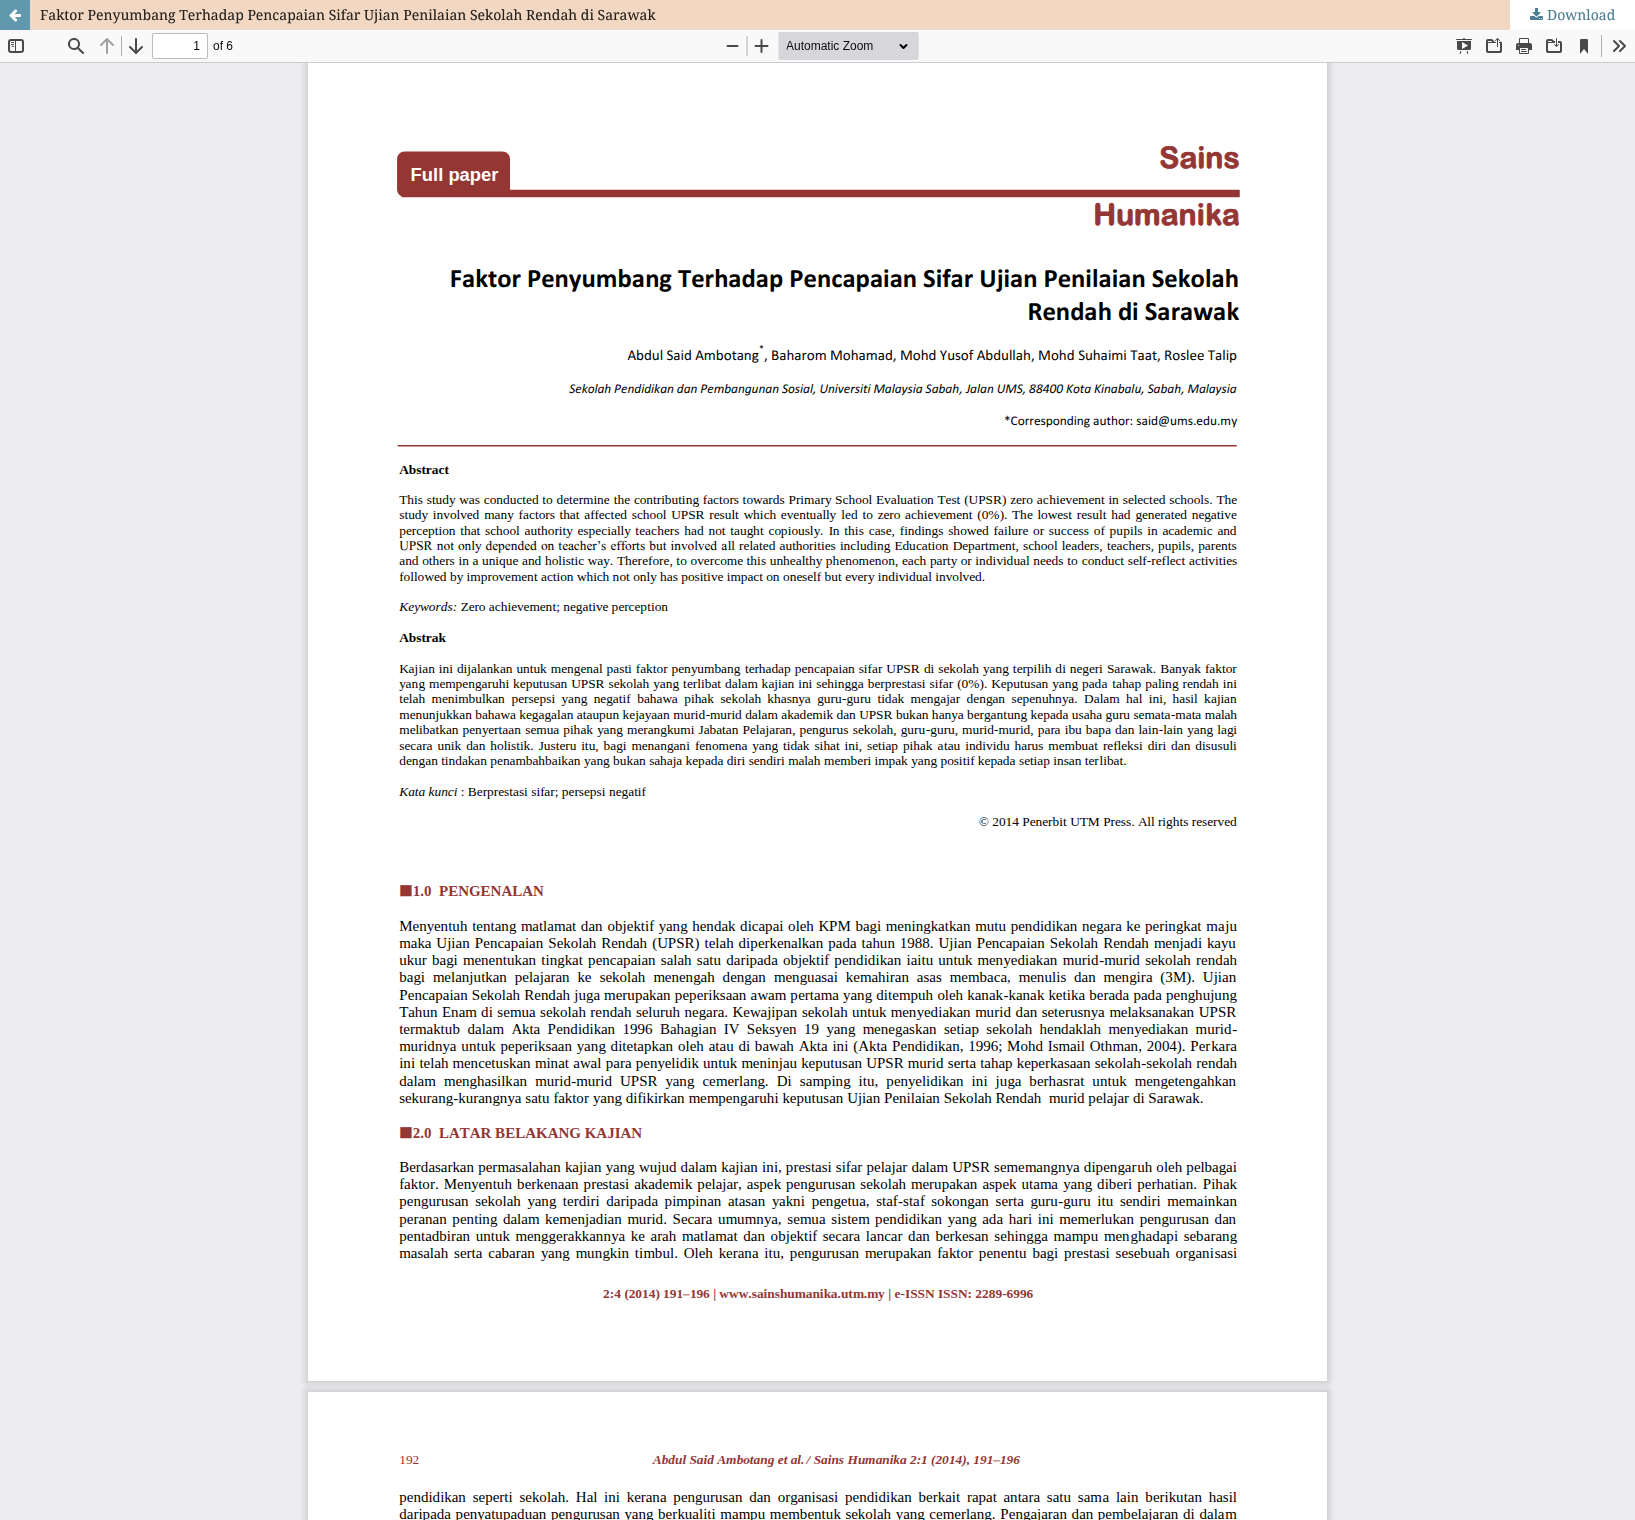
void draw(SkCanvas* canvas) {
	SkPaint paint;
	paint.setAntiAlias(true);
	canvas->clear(0xffffffff);
	paint.setColor(0xfff2d8c3);
	canvas->drawRect(SkRect::MakeXYWH(30, 0, 1480, 30), paint);
	paint.setColor(0xff6298ae);
	canvas->drawRect(SkRect::MakeXYWH(0, 0, 30, 30), paint);
	canvas->drawImageRect(SkImages::DeferredFromEncodedData(SkData::MakeFromFileName("img1.png")), SkRect::MakeXYWH(9, 9, 12, 13), SkSamplingOptions());
	SkFont f1(fontMgr->matchFamilyStyle("Noto Serif", SkFontStyle::Normal()), 14);
	f1.setSubpixel(true);
	paint.setColor(0xff27231f);
	canvas->drawString("Faktor Penyumbang Terhadap Pencapaian Sifar Ujian Penilaian Sekolah Rendah di Sarawak", 40, 20, f1, paint);
	canvas->drawImageRect(SkImages::DeferredFromEncodedData(SkData::MakeFromFileName("img2.png")), SkRect::MakeXYWH(1530, 8, 13, 12), SkSamplingOptions());
	paint.setColor(0xff4b7d92);
	canvas->drawString("Download", 1547, 20, f1, paint);
	canvas->drawImageRect(SkImages::DeferredFromEncodedData(SkData::MakeFromFileName("img3.png")), SkRect::MakeXYWH(0, 30, 1635, 1490), SkSamplingOptions());
}
